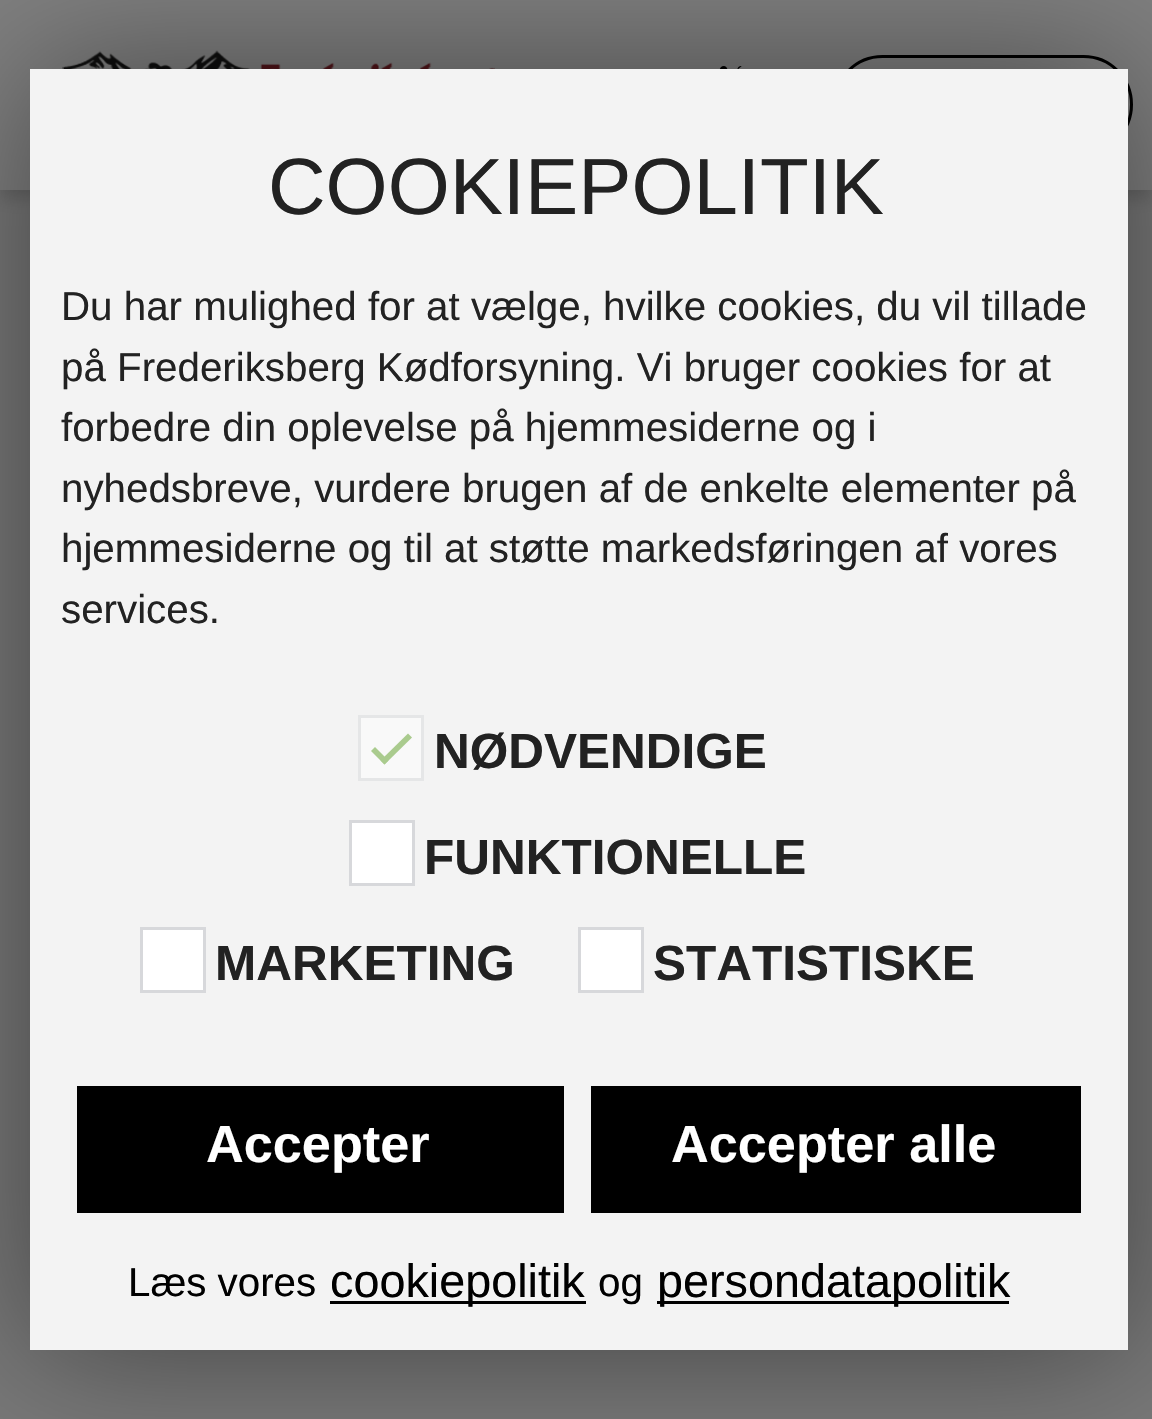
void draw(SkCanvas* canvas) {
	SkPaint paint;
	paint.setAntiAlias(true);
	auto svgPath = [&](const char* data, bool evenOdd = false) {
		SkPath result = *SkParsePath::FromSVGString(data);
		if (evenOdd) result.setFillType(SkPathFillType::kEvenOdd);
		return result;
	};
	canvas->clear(0xff797979);
	paint.setColor(0x29000000);
	paint.setMaskFilter(SkMaskFilter::MakeBlur(kNormal_SkBlurStyle, 8));
	canvas->drawRect(SkRect::MakeXYWH(0, 8, 1152, 190), paint);
	paint.setMaskFilter(nullptr);
	paint.setColor(0xff808080);
	canvas->drawRect(SkRect::MakeXYWH(0, 0, 1152, 190), paint);
	canvas->drawImageRect(SkImages::DeferredFromEncodedData(SkData::MakeFromFileName("img1.png")), SkRect::MakeXYWH(62, 50, 433, 19), SkSamplingOptions());
	canvas->drawImageRect(SkImages::DeferredFromEncodedData(SkData::MakeFromFileName("img2.png")), SkRect::MakeXYWH(719, 66, 23, 3), SkSamplingOptions());
	canvas->drawCircle(756.5, 85.5, 24.5, paint);
	paint.setStroke(true);
	paint.setStrokeWidth(3);
	paint.setColor(0xff000000);
	canvas->drawRoundRect(SkRect::MakeXYWH(834.5, 56.5, 297, 96), 48, 48, paint);
	paint.setStroke(false);
	paint.setColor(0x75000000);
	paint.setMaskFilter(SkMaskFilter::MakeBlur(kNormal_SkBlurStyle, 69));
	canvas->drawRect(SkRect::MakeXYWH(30, 69, 1098, 1281), paint);
	paint.setMaskFilter(nullptr);
	paint.setColor(0xfff3f3f3);
	canvas->drawRect(SkRect::MakeXYWH(30, 69, 1098, 1281), paint);
	SkFont f1(fontMgr->matchFamilyStyle("Liberation Sans", SkFontStyle::Normal()), 79.75);
	f1.setSubpixel(true);
	paint.setColor(0xff222222);
	canvas->drawString("COOKIEPOLITIK", 268, 214, f1, paint);
	SkFont f2(fontMgr->matchFamilyStyle("Liberation Sans", SkFontStyle::Normal()), 40.3);
	f2.setSubpixel(true);
	canvas->drawString("Du har mulighed for at vælge, hvilke cookies, du vil tillade", 61, 320, f2, paint);
	canvas->drawString("på Frederiksberg Kødforsyning. Vi bruger cookies for at", 61, 381, f2, paint);
	canvas->drawString("forbedre din oplevelse på hjemmesiderne og i", 61, 441, f2, paint);
	canvas->drawString("nyhedsbreve, vurdere brugen af de enkelte elementer på", 61, 502, f2, paint);
	canvas->drawString("hjemmesiderne og til at støtte markedsføringen af vores", 61, 562, f2, paint);
	canvas->drawString("services.", 61, 623, f2, paint);
	paint.setColor(0xfff9f9f9);
	canvas->drawRect(SkRect::MakeXYWH(359.5, 716.5, 63, 63), paint);
	paint.setStroke(true);
	paint.setColor(0xffe5e6e7);
	canvas->drawRect(SkRect::MakeXYWH(359.5, 716.5, 63, 63), paint);
	paint.setStroke(false);
	paint.setColor(0xffaacb8e);
	canvas->drawPath(svgPath("M408 733.5L412 737.5L384.5 764.5L380.5 760.5Z"), paint);
	canvas->drawPath(svgPath("M375 747L388.5 760.5L384.5 764.5L371 751Z"), paint);
	SkFont f3(fontMgr->matchFamilyStyle("Liberation Sans", SkFontStyle::Bold()), 49.5);
	f3.setSubpixel(true);
	paint.setColor(0xff222222);
	canvas->drawString("NØDVENDIGE", 434, 768, f3, paint);
	paint.setColor(0xffffffff);
	canvas->drawRect(SkRect::MakeXYWH(350.5, 821.5, 63, 63), paint);
	paint.setStroke(true);
	paint.setColor(0xffd7d8db);
	canvas->drawRect(SkRect::MakeXYWH(350.5, 821.5, 63, 63), paint);
	paint.setStroke(false);
	paint.setColor(0xff222222);
	canvas->drawString("FUNKTIONELLE", 424, 874, f3, paint);
	paint.setColor(0xffffffff);
	canvas->drawRect(SkRect::MakeXYWH(141.5, 928.5, 63, 63), paint);
	paint.setStroke(true);
	paint.setColor(0xffd7d8db);
	canvas->drawRect(SkRect::MakeXYWH(141.5, 928.5, 63, 63), paint);
	paint.setStroke(false);
	paint.setColor(0xff222222);
	canvas->drawString("MARKETING", 215, 980, f3, paint);
	paint.setColor(0xffffffff);
	canvas->drawRect(SkRect::MakeXYWH(579.5, 928.5, 63, 63), paint);
	paint.setStroke(true);
	paint.setColor(0xffd7d8db);
	canvas->drawRect(SkRect::MakeXYWH(579.5, 928.5, 63, 63), paint);
	paint.setStroke(false);
	paint.setColor(0xff222222);
	canvas->drawString("STATISTISKE", 653, 980, f3, paint);
	paint.setColor(0xff000000);
	canvas->drawRect(SkRect::MakeXYWH(77, 1086, 487, 127), paint);
	SkFont f4(fontMgr->matchFamilyStyle("Liberation Sans", SkFontStyle::Bold()), 52.25);
	f4.setSubpixel(true);
	paint.setColor(0xffffffff);
	canvas->drawString("Accepter", 206, 1162, f4, paint);
	paint.setColor(0xff000000);
	canvas->drawRect(SkRect::MakeXYWH(591, 1086, 490, 127), paint);
	paint.setColor(0xffffffff);
	canvas->drawString("Accepter alle", 671, 1162, f4, paint);
	paint.setColor(0xff000000);
	canvas->drawString("Læs vores", 128, 1296, f2, paint);
	canvas->drawRect(SkRect::MakeXYWH(330, 1301, 256, 3), paint);
	SkFont f5(fontMgr->matchFamilyStyle("Liberation Sans", SkFontStyle::Normal()), 46.75);
	f5.setSubpixel(true);
	canvas->drawString("cookiepolitik", 330, 1297, f5, paint);
	canvas->drawString("og", 598, 1296, f2, paint);
	canvas->drawRect(SkRect::MakeXYWH(657, 1301, 352, 3), paint);
	canvas->drawString("persondatapolitik", 657, 1297, f5, paint);
}
